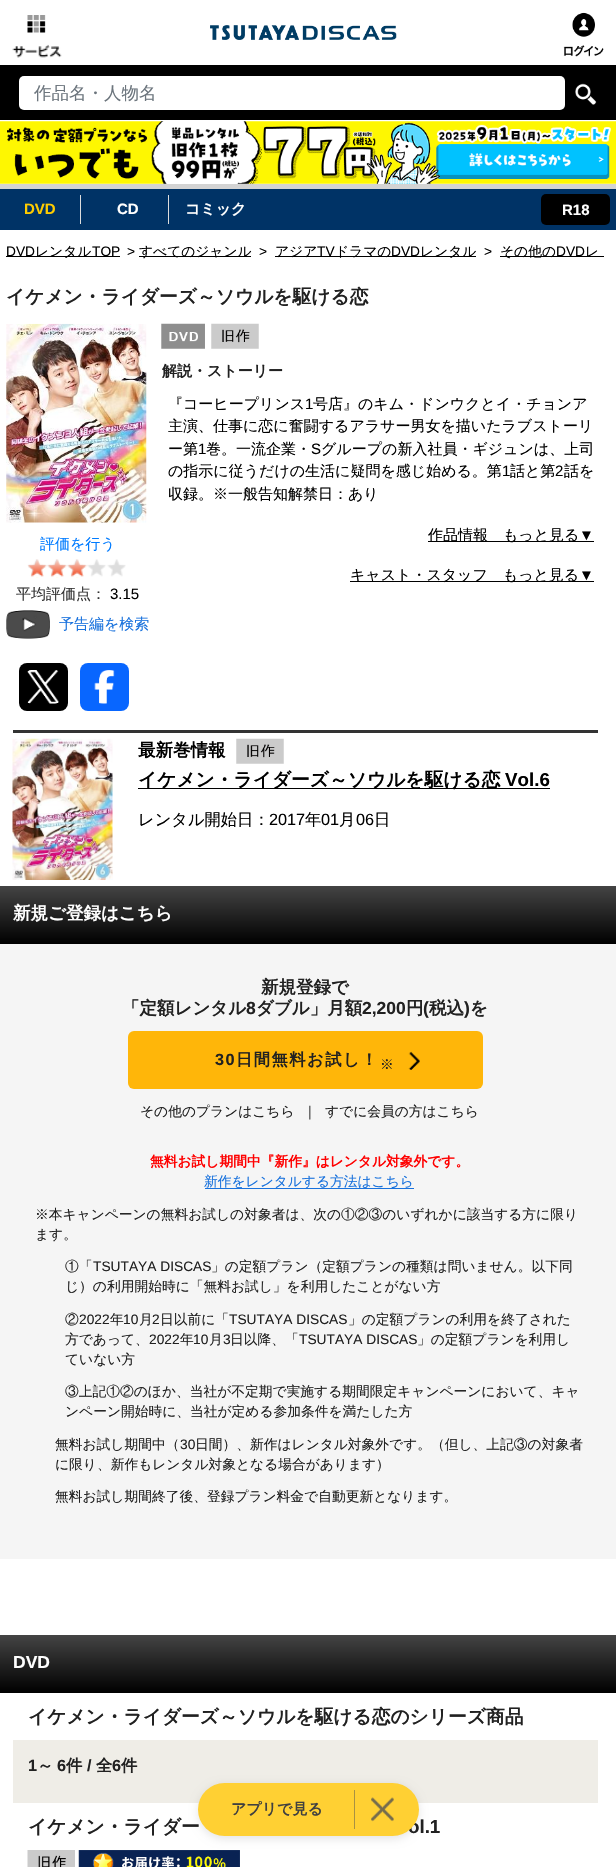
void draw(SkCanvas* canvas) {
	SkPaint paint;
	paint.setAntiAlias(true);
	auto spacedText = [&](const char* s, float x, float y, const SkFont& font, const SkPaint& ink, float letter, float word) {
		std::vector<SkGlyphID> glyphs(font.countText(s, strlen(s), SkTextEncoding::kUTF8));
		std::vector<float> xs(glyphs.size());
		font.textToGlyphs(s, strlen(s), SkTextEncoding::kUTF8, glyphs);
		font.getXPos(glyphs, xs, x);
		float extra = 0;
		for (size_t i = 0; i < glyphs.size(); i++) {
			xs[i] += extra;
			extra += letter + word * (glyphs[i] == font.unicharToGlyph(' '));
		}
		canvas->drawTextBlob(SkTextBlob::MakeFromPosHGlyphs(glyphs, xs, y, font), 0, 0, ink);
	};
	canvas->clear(0xffffffff);
	canvas->drawImageRect(SkImages::DeferredFromEncodedData(SkData::MakeFromFileName("img1.png")), SkRect::MakeXYWH(12, 15, 50, 43), SkSamplingOptions());
	canvas->drawImageRect(SkImages::DeferredFromEncodedData(SkData::MakeFromFileName("img2.png")), SkRect::MakeXYWH(210, 25, 187, 15), SkSamplingOptions());
	canvas->drawImageRect(SkImages::DeferredFromEncodedData(SkData::MakeFromFileName("img3.png")), SkRect::MakeXYWH(563, 12, 41, 45), SkSamplingOptions());
	paint.setColor(0xff000000);
	canvas->drawRect(SkRect::MakeXYWH(0, 65, 616, 55), paint);
	paint.setColor(0xffffffff);
	canvas->drawRoundRect(SkRect::MakeXYWH(19, 76, 546, 34), 5, 5, paint);
	SkFont f1(fontMgr->matchFamilyStyle("WenQuanYi Zen Hei", SkFontStyle(500, SkFontStyle::kNormal_Width, SkFontStyle::kUpright_Slant)), 17.5);
	f1.setSubpixel(true);
	paint.setColor(0xff6c757d);
	canvas->drawString("作品名・人物名", 34, 99, f1, paint);
	canvas->drawImageRect(SkImages::DeferredFromEncodedData(SkData::MakeFromFileName("img4.png")), SkRect::MakeXYWH(575, 83, 22, 22), SkSamplingOptions());
	canvas->drawImageRect(SkImages::DeferredFromEncodedData(SkData::MakeFromFileName("img5.png")), SkRect::MakeXYWH(0, 121, 616, 63), SkSamplingOptions());
	paint.setColor(0xffd3d3d3);
	canvas->drawRect(SkRect::MakeXYWH(0, 184, 616, 5), paint);
	paint.setColor(0xff003366);
	canvas->drawRect(SkRect::MakeXYWH(0, 189, 616, 41), paint);
	paint.setColor(0xffdddddd);
	canvas->drawRect(SkRect::MakeXYWH(80, 195, 1, 29), paint);
	SkFont f2(fontMgr->matchFamilyStyle("Liberation Sans", SkFontStyle::Bold()), 15);
	f2.setSubpixel(true);
	paint.setColor(0xffffcc00);
	canvas->drawString("DVD", 24, 214, f2, paint);
	paint.setColor(0xffdddddd);
	canvas->drawRect(SkRect::MakeXYWH(168, 195, 1, 29), paint);
	paint.setColor(0xffffffff);
	canvas->drawString("CD", 117, 214, f2, paint);
	SkFont f3(fontMgr->matchFamilyStyle("WenQuanYi Zen Hei", SkFontStyle::Bold()), 15);
	f3.setSubpixel(true);
	canvas->drawString("コミック", 185, 214, f3, paint);
	paint.setColor(0xff000000);
	canvas->drawRoundRect(SkRect::MakeXYWH(541, 194, 69, 31), 5, 5, paint);
	paint.setColor(0xffffffff);
	canvas->drawString("R18", 562, 215, f2, paint);
	SkFont f4(fontMgr->matchFamilyStyle("Liberation Sans", SkFontStyle::Normal()), 13.75);
	f4.setSubpixel(true);
	paint.setColor(0xff000000);
	canvas->drawString("DVD", 6, 256, f4, paint);
	canvas->drawRect(SkRect::MakeXYWH(6, 256, 114, 1), paint);
	SkFont f5(fontMgr->matchFamilyStyle("WenQuanYi Zen Hei", SkFontStyle(500, SkFontStyle::kNormal_Width, SkFontStyle::kUpright_Slant)), 13.75);
	f5.setSubpixel(true);
	canvas->drawString("レンタル", 35, 256, f5, paint);
	canvas->drawString("TOP", 92, 256, f4, paint);
	canvas->drawString(">", 127, 256, f4, paint);
	canvas->drawRect(SkRect::MakeXYWH(139, 256, 112, 1), paint);
	canvas->drawString("すべてのジャンル", 139, 256, f5, paint);
	canvas->drawString(">", 259, 256, f4, paint);
	canvas->drawRect(SkRect::MakeXYWH(275, 256, 201, 1), paint);
	canvas->drawString("アジア", 275, 256, f5, paint);
	canvas->drawString("TV", 317, 256, f4, paint);
	canvas->drawString("ドラマの", 335, 256, f5, paint);
	canvas->drawString("DVD", 391, 256, f4, paint);
	canvas->drawString("レンタル", 420, 256, f5, paint);
	canvas->drawString(">", 484, 256, f4, paint);
	canvas->drawRect(SkRect::MakeXYWH(500, 256, 104, 1), paint);
	canvas->drawString("その他の", 500, 256, f5, paint);
	canvas->drawString("DVD", 556, 256, f4, paint);
	canvas->drawString("レ", 585, 256, f5, paint);
	SkFont f6(fontMgr->matchFamilyStyle("WenQuanYi Zen Hei", SkFontStyle::Bold()), 18.75);
	f6.setSubpixel(true);
	paint.setColor(0xff212121);
	canvas->drawString("イケメン・ライダーズ～ソウルを駆ける恋", 6, 303, f6, paint);
	canvas->drawImageRect(SkImages::DeferredFromEncodedData(SkData::MakeFromFileName("img6.png")), SkRect::MakeXYWH(6, 323, 141, 200), SkSamplingOptions());
	SkFont f7(fontMgr->matchFamilyStyle("WenQuanYi Zen Hei", SkFontStyle(500, SkFontStyle::kNormal_Width, SkFontStyle::kUpright_Slant)), 15);
	f7.setSubpixel(true);
	paint.setColor(0xff007bff);
	canvas->drawString("評価を行う", 40, 549, f7, paint);
	canvas->drawImageRect(SkImages::DeferredFromEncodedData(SkData::MakeFromFileName("img7.png")), SkRect::MakeXYWH(28, 559, 98, 18), SkSamplingOptions());
	canvas->drawImageRect(SkImages::DeferredFromEncodedData(SkData::MakeFromFileName("img8.png")), SkRect::MakeXYWH(27, 559, 61, 19), SkSamplingOptions());
	paint.setColor(0xff333333);
	canvas->drawString("平均評価点：", 16, 599, f7, paint);
	SkFont f8(fontMgr->matchFamilyStyle("Liberation Sans", SkFontStyle::Normal()), 15);
	f8.setSubpixel(true);
	paint.setColor(0xff000000);
	canvas->drawString("3.15", 110, 599, f8, paint);
	canvas->drawImageRect(SkImages::DeferredFromEncodedData(SkData::MakeFromFileName("img9.png")), SkRect::MakeXYWH(6, 610, 44, 29), SkSamplingOptions());
	paint.setColor(0xff1972dd);
	canvas->drawString("予告編を検索", 59, 629, f7, paint);
	paint.setColor(0xff000000);
	canvas->drawRoundRect(SkRect::MakeXYWH(19, 663, 49, 48), 8, 8, paint);
	canvas->drawImageRect(SkImages::DeferredFromEncodedData(SkData::MakeFromFileName("img10.png")), SkRect::MakeXYWH(27, 670, 32, 34), SkSamplingOptions());
	paint.setColor(0xff0866ff);
	canvas->drawRoundRect(SkRect::MakeXYWH(80, 663, 49, 48), 8, 8, paint);
	canvas->drawImageRect(SkImages::DeferredFromEncodedData(SkData::MakeFromFileName("img11.png")), SkRect::MakeXYWH(94, 670, 21, 34), SkSamplingOptions());
	canvas->drawImageRect(SkImages::DeferredFromEncodedData(SkData::MakeFromFileName("img12.png")), SkRect::MakeXYWH(161, 323, 44, 26), SkSamplingOptions());
	canvas->drawImageRect(SkImages::DeferredFromEncodedData(SkData::MakeFromFileName("img13.png")), SkRect::MakeXYWH(211, 323, 48, 26), SkSamplingOptions());
	paint.setColor(0xff212121);
	canvas->drawString("解説・ストーリー", 162, 376, f3, paint);
	paint.setColor(0xff000000);
	canvas->drawString("『コーヒープリンス", 168, 409, f7, paint);
	canvas->drawString("1", 305, 409, f8, paint);
	canvas->drawString("号店』のキム・ドンウクとイ・チョンア", 313, 409, f7, paint);
	canvas->drawString("主演、仕事に恋に奮闘するアラサー男女を描いたラブストーリ", 168, 431, f7, paint);
	canvas->drawString("ー第", 168, 454, f7, paint);
	canvas->drawString("1", 198, 454, f8, paint);
	canvas->drawString("巻。一流企業・", 206, 454, f7, paint);
	canvas->drawString("S", 311, 454, f8, paint);
	canvas->drawString("グループの新入社員・ギジュンは、上司", 321, 454, f7, paint);
	canvas->drawString("の指示に従うだけの生活に疑問を感じ始める。第", 168, 476, f7, paint);
	canvas->drawString("1", 502, 476, f8, paint);
	canvas->drawString("話と第", 510, 476, f7, paint);
	canvas->drawString("2", 555, 476, f8, paint);
	canvas->drawString("話を", 564, 476, f7, paint);
	canvas->drawString("収録。※一般告知解禁日：あり", 168, 499, f7, paint);
	canvas->drawRect(SkRect::MakeXYWH(428, 541, 166, 1), paint);
	canvas->drawString("作品情報　もっと見る", 428, 540, f7, paint);
	canvas->drawString("▼", 579, 540, f8, paint);
	canvas->drawRect(SkRect::MakeXYWH(350, 581, 244, 1), paint);
	canvas->drawString("キャスト・スタッフ　もっと見る", 350, 580, f7, paint);
	canvas->drawString("▼", 579, 580, f8, paint);
	paint.setColor(0xff333333);
	canvas->drawRect(SkRect::MakeXYWH(13, 730, 585, 3), paint);
	canvas->drawImageRect(SkImages::DeferredFromEncodedData(SkData::MakeFromFileName("img14.png")), SkRect::MakeXYWH(12, 738, 101, 142), SkSamplingOptions());
	SkFont f9(fontMgr->matchFamilyStyle("WenQuanYi Zen Hei", SkFontStyle::Bold()), 17.5);
	f9.setSubpixel(true);
	paint.setColor(0xff000000);
	canvas->drawString("最新巻情報", 138, 756, f9, paint);
	canvas->drawImageRect(SkImages::DeferredFromEncodedData(SkData::MakeFromFileName("img15.png")), SkRect::MakeXYWH(236, 738, 48, 26), SkSamplingOptions());
	canvas->drawRect(SkRect::MakeXYWH(138, 788, 412, 1), paint);
	canvas->drawString("イケメン・ライダーズ～ソウルを駆ける恋", 138, 786, f6, paint);
	SkFont f10(fontMgr->matchFamilyStyle("Liberation Sans", SkFontStyle::Bold()), 18.75);
	f10.setSubpixel(true);
	canvas->drawString("Vol.6", 505, 786, f10, paint);
	SkFont f11(fontMgr->matchFamilyStyle("WenQuanYi Zen Hei", SkFontStyle(500, SkFontStyle::kNormal_Width, SkFontStyle::kUpright_Slant)), 16.25);
	f11.setSubpixel(true);
	canvas->drawString("レンタル開始日：", 138, 825, f11, paint);
	SkFont f12(fontMgr->matchFamilyStyle("Liberation Sans", SkFontStyle::Normal()), 16.25);
	f12.setSubpixel(true);
	canvas->drawString("2017", 269, 825, f12, paint);
	canvas->drawString("年", 305, 825, f11, paint);
	canvas->drawString("01", 321, 825, f12, paint);
	canvas->drawString("月", 339, 825, f11, paint);
	canvas->drawString("06", 356, 825, f12, paint);
	canvas->drawString("日", 374, 825, f11, paint);
	{
		const SkColor colors[] = {0xff444444, 0xff000000};
		const float stops[] = {0, 1};
		const SkPoint ends[] = {{-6.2, 886}, {-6.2, 944}};
		paint.setShader(SkGradientShader::MakeLinear(ends, colors, stops, 2, SkTileMode::kClamp));
		paint.setAlpha(255);
	}
	canvas->drawRect(SkRect::MakeXYWH(0, 886, 616, 58), paint);
	paint.setShader(nullptr);
	paint.setColor(0xffffffff);
	canvas->drawString("新規ご登録はこちら", 13, 919, f9, paint);
	paint.setColor(0xfff5f5f5);
	canvas->drawRect(SkRect::MakeXYWH(0, 944, 616, 615), paint);
	paint.setColor(0xff212121);
	canvas->drawString("新規登録で", 261, 993, f9, paint);
	canvas->drawString("「定額レンタル", 122, 1014, f9, paint);
	SkFont f13(fontMgr->matchFamilyStyle("Liberation Sans", SkFontStyle::Bold()), 17.5);
	f13.setSubpixel(true);
	canvas->drawString("8", 246, 1014, f13, paint);
	canvas->drawString("ダブル」月額", 256, 1014, f9, paint);
	canvas->drawString("2,200", 362, 1014, f13, paint);
	canvas->drawString("円", 406, 1014, f9, paint);
	canvas->drawString("(", 423, 1014, f13, paint);
	canvas->drawString("税込", 429, 1014, f9, paint);
	canvas->drawString(")", 464, 1014, f13, paint);
	canvas->drawString("を", 470, 1014, f9, paint);
	paint.setColor(0xffffb609);
	canvas->drawRoundRect(SkRect::MakeXYWH(128, 1031, 355, 58), 6, 6, paint);
	SkFont f14(fontMgr->matchFamilyStyle("Liberation Sans", SkFontStyle::Bold()), 16.25);
	f14.setSubpixel(true);
	paint.setColor(0xff212121);
	spacedText("30", 215, 1065, f14, paint, 1.5, 0);
	SkFont f15(fontMgr->matchFamilyStyle("WenQuanYi Zen Hei", SkFontStyle::Bold()), 16.25);
	f15.setSubpixel(true);
	spacedText("日間無料お試し！", 236, 1065, f15, paint, 1.5, 0);
	spacedText("※", 380, 1069, f5, paint, 1.5, 0);
	canvas->drawImageRect(SkImages::DeferredFromEncodedData(SkData::MakeFromFileName("img16.png")), SkRect::MakeXYWH(408, 1051, 12, 19), SkSamplingOptions());
	canvas->drawString("その他のプランはこちら", 140, 1116, f5, paint);
	canvas->drawString("｜", 303, 1116, f5, paint);
	canvas->drawString("すでに会員の方はこちら", 325, 1116, f5, paint);
	SkFont f16(fontMgr->matchFamilyStyle("WenQuanYi Zen Hei", SkFontStyle::Bold()), 13.75);
	f16.setSubpixel(true);
	paint.setColor(0xffff0000);
	canvas->drawString("無料お試し期間中『新作』はレンタル対象外です。", 150, 1166, f16, paint);
	paint.setColor(0xff1972dd);
	canvas->drawRect(SkRect::MakeXYWH(205, 1188, 209, 1), paint);
	canvas->drawString("新作をレンタルする方法はこちら", 204, 1186, f5, paint);
	paint.setColor(0xff212121);
	canvas->drawString("※本キャンペーンの無料お試しの対象者は、次の①②③のいずれかに該当する方に限り", 35, 1219, f5, paint);
	canvas->drawString("ます。", 35, 1239, f5, paint);
	canvas->drawString("①「", 65, 1271, f5, paint);
	canvas->drawString("TSUTAYA DISCAS", 93, 1271, f4, paint);
	canvas->drawString("」の定額プラン（定額プランの種類は問いません。以下同", 211, 1271, f5, paint);
	canvas->drawString("じ）の利用開始時に「無料お試し」を利用したことがない方", 65, 1291, f5, paint);
	canvas->drawString("②", 65, 1324, f5, paint);
	canvas->drawString("2022", 79, 1324, f4, paint);
	canvas->drawString("年", 110, 1324, f5, paint);
	canvas->drawString("10", 123, 1324, f4, paint);
	canvas->drawString("月", 139, 1324, f5, paint);
	canvas->drawString("2", 152, 1324, f4, paint);
	canvas->drawString("日以前に「", 160, 1324, f5, paint);
	canvas->drawString("TSUTAYA DISCAS", 229, 1324, f4, paint);
	canvas->drawString("」の定額プランの利用を終了された", 348, 1324, f5, paint);
	canvas->drawString("方であって、", 65, 1344, f5, paint);
	canvas->drawString("2022", 149, 1344, f4, paint);
	canvas->drawString("年", 180, 1344, f5, paint);
	canvas->drawString("10", 193, 1344, f4, paint);
	canvas->drawString("月", 209, 1344, f5, paint);
	canvas->drawString("3", 223, 1344, f4, paint);
	canvas->drawString("日以降、「", 230, 1344, f5, paint);
	canvas->drawString("TSUTAYA DISCAS", 299, 1344, f4, paint);
	canvas->drawString("」の定額プランを利用し", 417, 1344, f5, paint);
	canvas->drawString("ていない方", 65, 1364, f5, paint);
	canvas->drawString("③上記①②のほか、当社が不定期で実施する期間限定キャンペーンにおいて、キャ", 65, 1396, f5, paint);
	canvas->drawString("ンペーン開始時に、当社が定める参加条件を満たした方", 65, 1416, f5, paint);
	canvas->drawString("無料お試し期間中（", 55, 1449, f5, paint);
	canvas->drawString("30", 180, 1449, f4, paint);
	canvas->drawString("日間）、新作はレンタル対象外です。（但し、上記③の対象者", 195, 1449, f5, paint);
	canvas->drawString("に限り、新作もレンタル対象となる場合があります）", 55, 1469, f5, paint);
	canvas->drawString("無料お試し期間終了後、登録プラン料金で自動更新となります。", 55, 1501, f5, paint);
	{
		const SkColor colors[] = {0xff444444, 0xff000000};
		const float stops[] = {0, 1};
		const SkPoint ends[] = {{-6.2, 1635}, {-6.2, 1693}};
		paint.setShader(SkGradientShader::MakeLinear(ends, colors, stops, 2, SkTileMode::kClamp));
		paint.setAlpha(255);
	}
	canvas->drawRect(SkRect::MakeXYWH(0, 1635, 616, 58), paint);
	paint.setShader(nullptr);
	paint.setColor(0xffffffff);
	canvas->drawString("DVD", 13, 1668, f13, paint);
	paint.setColor(0xff212121);
	canvas->drawString("イケメン・ライダーズ～ソウルを駆ける恋のシリーズ商品", 28, 1723, f6, paint);
	paint.setColor(0xffefede7);
	canvas->drawRect(SkRect::MakeXYWH(13, 1740, 585, 63), paint);
	paint.setColor(0xff212121);
	canvas->drawString("1", 28, 1771, f14, paint);
	canvas->drawString("～", 37, 1771, f15, paint);
	canvas->drawString("6", 57, 1771, f14, paint);
	canvas->drawString("件", 66, 1771, f15, paint);
	canvas->drawString("/", 87, 1771, f14, paint);
	canvas->drawString("全", 96, 1771, f15, paint);
	canvas->drawString("6", 112, 1771, f14, paint);
	canvas->drawString("件", 121, 1771, f15, paint);
	canvas->drawString("イケメン・ライダー", 28, 1833, f6, paint);
	canvas->drawString("ol.1", 408, 1833, f10, paint);
	canvas->drawImageRect(SkImages::DeferredFromEncodedData(SkData::MakeFromFileName("img17.png")), SkRect::MakeXYWH(27, 1850, 48, 17), SkSamplingOptions());
	canvas->drawImageRect(SkImages::DeferredFromEncodedData(SkData::MakeFromFileName("img18.png")), SkRect::MakeXYWH(78, 1850, 162, 17), SkSamplingOptions());
	paint.setColor(0x1a000000);
	paint.setMaskFilter(SkMaskFilter::MakeBlur(kNormal_SkBlurStyle, 4));
	canvas->drawRoundRect(SkRect::MakeXYWH(198, 1785, 221, 54), 27, 27, paint);
	paint.setMaskFilter(nullptr);
	paint.setColor(0xffffd033);
	canvas->drawRoundRect(SkRect::MakeXYWH(198, 1783, 221, 53), 26.5, 26.5, paint);
	paint.setColor(0xff404040);
	canvas->drawString("アプリで見る", 231, 1814, f3, paint);
	paint.setColor(0xffa89143);
	canvas->drawRect(SkRect::MakeXYWH(354, 1790, 1, 39), paint);
	canvas->drawImageRect(SkImages::DeferredFromEncodedData(SkData::MakeFromFileName("img19.png")), SkRect::MakeXYWH(371, 1797, 23, 25), SkSamplingOptions());
}
